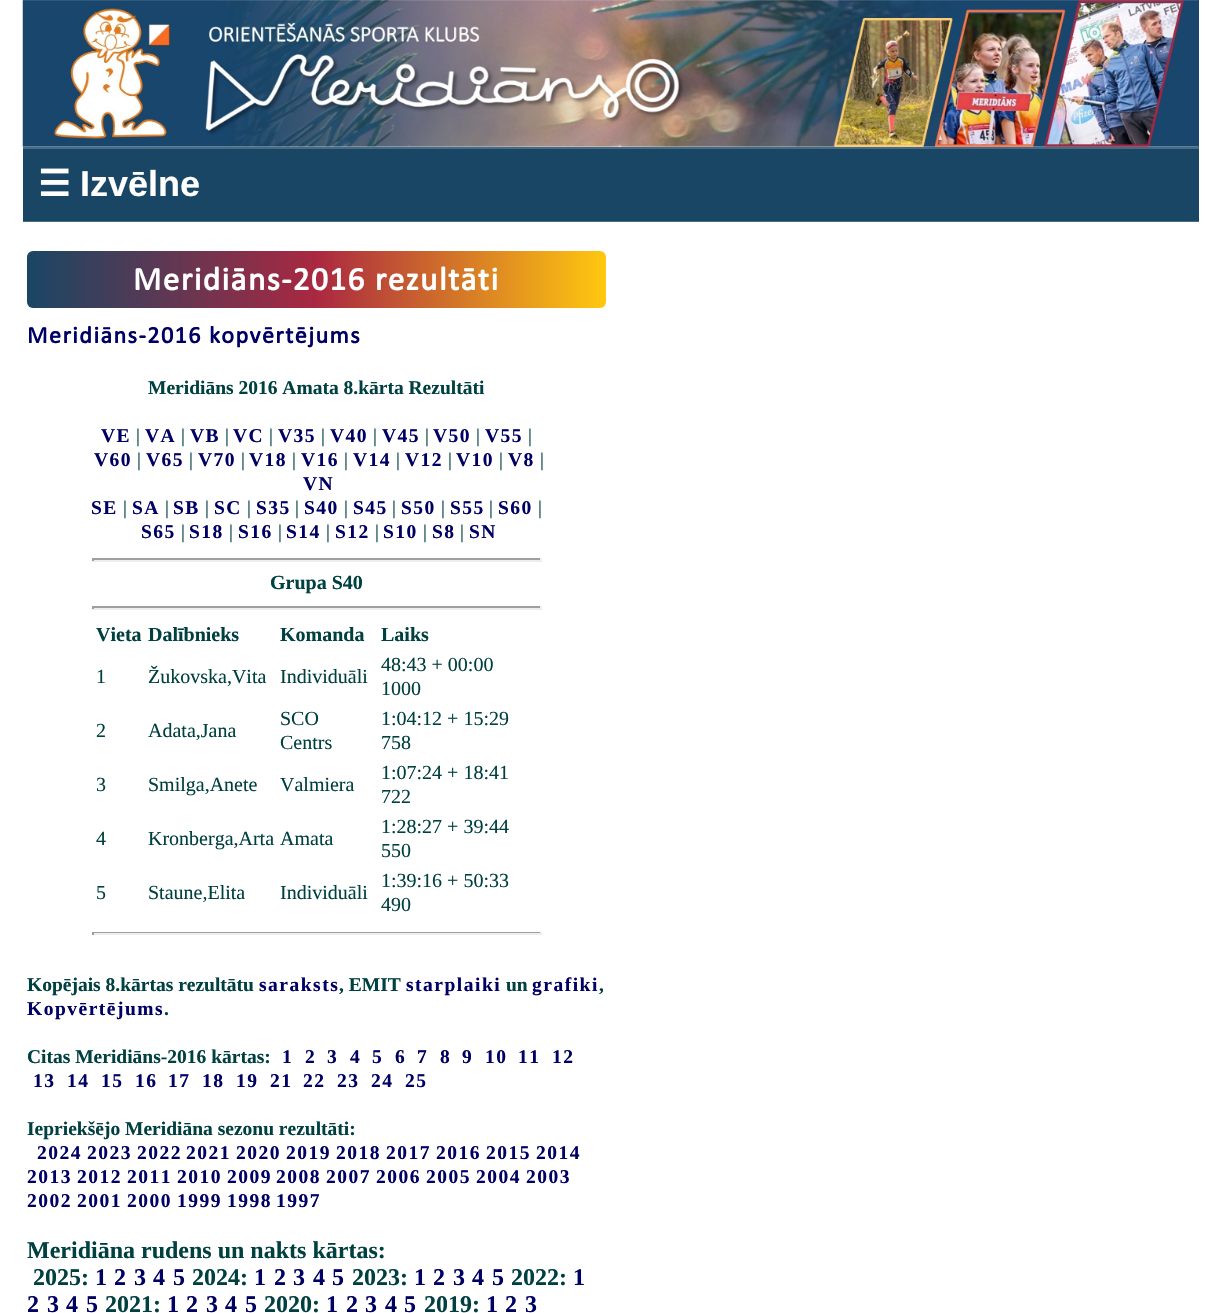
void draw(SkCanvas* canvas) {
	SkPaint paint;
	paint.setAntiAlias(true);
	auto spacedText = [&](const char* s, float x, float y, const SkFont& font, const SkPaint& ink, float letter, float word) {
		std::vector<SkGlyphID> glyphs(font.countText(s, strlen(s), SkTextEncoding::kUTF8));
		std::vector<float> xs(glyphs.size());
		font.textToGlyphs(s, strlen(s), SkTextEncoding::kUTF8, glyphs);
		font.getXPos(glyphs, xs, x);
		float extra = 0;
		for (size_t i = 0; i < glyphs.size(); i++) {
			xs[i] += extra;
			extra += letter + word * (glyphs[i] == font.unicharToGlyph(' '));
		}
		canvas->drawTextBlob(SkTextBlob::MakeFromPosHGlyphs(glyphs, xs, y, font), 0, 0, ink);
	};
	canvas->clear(0xffffffff);
	paint.setColor(0xff194664);
	canvas->drawRect(SkRect::MakeXYWH(1198, 0, 1, 147), paint);
	canvas->drawImageRect(SkImages::DeferredFromEncodedData(SkData::MakeFromFileName("img1.png")), SkRect::MakeXYWH(22, 0, 1177, 147), SkSamplingOptions());
	canvas->drawRect(SkRect::MakeXYWH(23, 149, 1176, 72), paint);
	paint.setColor(0xff476b83);
	canvas->drawRect(SkRect::MakeXYWH(23, 221, 1176, 1), paint);
	canvas->drawRect(SkRect::MakeXYWH(23, 147, 1176, 2), paint);
	SkFont f1(fontMgr->matchFamilyStyle("DejaVu Sans", SkFontStyle::Bold()), 36);
	f1.setSubpixel(true);
	paint.setColor(0xffffffff);
	canvas->drawString("☰", 38, 196, f1, paint);
	SkFont f2(fontMgr->matchFamilyStyle("Liberation Sans", SkFontStyle::Bold()), 36);
	f2.setSubpixel(true);
	canvas->drawString("Izvēlne", 80, 196, f2, paint);
	{
		const SkColor colors[] = {0xff194664, 0xffaa2841, 0xffffc80f};
		const float stops[] = {0, 0.5, 1};
		const SkPoint ends[] = {{27, 279}, {606, 279}};
		paint.setShader(SkGradientShader::MakeLinear(ends, colors, stops, 3, SkTileMode::kClamp));
		paint.setAlpha(255);
	}
	canvas->drawRoundRect(SkRect::MakeXYWH(27, 251, 579, 57), 6, 6, paint);
	SkFont f3(fontMgr->matchFamilyStyle("Calibri", SkFontStyle::Bold()), 33);
	f3.setSubpixel(true);
	paint.setShader(nullptr);
	paint.setColor(0xffffffff);
	spacedText("Meridiāns-2016 rezultāti", 133, 290, f3, paint, 1.5, 0);
	SkFont f4(fontMgr->matchFamilyStyle("Calibri", SkFontStyle::Bold()), 24);
	f4.setSubpixel(true);
	paint.setColor(0xff000064);
	spacedText("Meridiāns-2016 kopvērtējums", 27, 343, f4, paint, 1.5, 0);
	SkFont f5(fontMgr->matchFamilyStyle("Liberation Serif", SkFontStyle::Bold()), 19.5);
	f5.setSubpixel(true);
	paint.setColor(0xff004040);
	canvas->drawString("Meridiāns 2016 Amata 8.kārta Rezultāti", 148, 394, f5, paint);
	paint.setColor(0xff000064);
	spacedText("VE", 101, 442, f5, paint, 1.5, 0);
	SkFont f6(fontMgr->matchFamilyStyle("Liberation Serif", SkFontStyle::Normal()), 19.5);
	f6.setSubpixel(true);
	paint.setColor(0xff004040);
	canvas->drawString("|", 136, 442, f6, paint);
	paint.setColor(0xff000064);
	spacedText("VA", 145, 442, f5, paint, 1.5, 0);
	paint.setColor(0xff004040);
	canvas->drawString("|", 181, 442, f6, paint);
	paint.setColor(0xff000064);
	spacedText("VB", 190, 442, f5, paint, 1.5, 0);
	paint.setColor(0xff004040);
	canvas->drawString("|", 225, 442, f6, paint);
	paint.setColor(0xff000064);
	spacedText("VC", 233, 442, f5, paint, 1.5, 0);
	paint.setColor(0xff004040);
	canvas->drawString("|", 269, 442, f6, paint);
	paint.setColor(0xff000064);
	spacedText("V35", 278, 442, f5, paint, 1.5, 0);
	paint.setColor(0xff004040);
	canvas->drawString("|", 321, 442, f6, paint);
	paint.setColor(0xff000064);
	spacedText("V40", 330, 442, f5, paint, 1.5, 0);
	paint.setColor(0xff004040);
	canvas->drawString("|", 373, 442, f6, paint);
	paint.setColor(0xff000064);
	spacedText("V45", 382, 442, f5, paint, 1.5, 0);
	paint.setColor(0xff004040);
	canvas->drawString("|", 425, 442, f6, paint);
	paint.setColor(0xff000064);
	spacedText("V50", 433, 442, f5, paint, 1.5, 0);
	paint.setColor(0xff004040);
	canvas->drawString("|", 476, 442, f6, paint);
	paint.setColor(0xff000064);
	spacedText("V55", 485, 442, f5, paint, 1.5, 0);
	paint.setColor(0xff004040);
	canvas->drawString("|", 528, 442, f6, paint);
	paint.setColor(0xff000064);
	spacedText("V60", 94, 466, f5, paint, 1.5, 0);
	paint.setColor(0xff004040);
	canvas->drawString("|", 137, 466, f6, paint);
	paint.setColor(0xff000064);
	spacedText("V65", 146, 466, f5, paint, 1.5, 0);
	paint.setColor(0xff004040);
	canvas->drawString("|", 189, 466, f6, paint);
	paint.setColor(0xff000064);
	spacedText("V70", 198, 466, f5, paint, 1.5, 0);
	paint.setColor(0xff004040);
	canvas->drawString("|", 241, 466, f6, paint);
	paint.setColor(0xff000064);
	spacedText("V18", 249, 466, f5, paint, 1.5, 0);
	paint.setColor(0xff004040);
	canvas->drawString("|", 292, 466, f6, paint);
	paint.setColor(0xff000064);
	spacedText("V16", 301, 466, f5, paint, 1.5, 0);
	paint.setColor(0xff004040);
	canvas->drawString("|", 344, 466, f6, paint);
	paint.setColor(0xff000064);
	spacedText("V14", 353, 466, f5, paint, 1.5, 0);
	paint.setColor(0xff004040);
	canvas->drawString("|", 396, 466, f6, paint);
	paint.setColor(0xff000064);
	spacedText("V12", 405, 466, f5, paint, 1.5, 0);
	paint.setColor(0xff004040);
	canvas->drawString("|", 448, 466, f6, paint);
	paint.setColor(0xff000064);
	spacedText("V10", 456, 466, f5, paint, 1.5, 0);
	paint.setColor(0xff004040);
	canvas->drawString("|", 499, 466, f6, paint);
	paint.setColor(0xff000064);
	spacedText("V8", 508, 466, f5, paint, 1.5, 0);
	paint.setColor(0xff004040);
	canvas->drawString("|", 540, 466, f6, paint);
	paint.setColor(0xff000064);
	spacedText("VN", 303, 490, f5, paint, 1.5, 0);
	spacedText("SE", 91, 514, f5, paint, 1.5, 0);
	paint.setColor(0xff004040);
	canvas->drawString("|", 123, 514, f6, paint);
	paint.setColor(0xff000064);
	spacedText("SA", 132, 514, f5, paint, 1.5, 0);
	paint.setColor(0xff004040);
	canvas->drawString("|", 165, 514, f6, paint);
	paint.setColor(0xff000064);
	spacedText("SB", 173, 514, f5, paint, 1.5, 0);
	paint.setColor(0xff004040);
	canvas->drawString("|", 205, 514, f6, paint);
	paint.setColor(0xff000064);
	spacedText("SC", 214, 514, f5, paint, 1.5, 0);
	paint.setColor(0xff004040);
	canvas->drawString("|", 247, 514, f6, paint);
	paint.setColor(0xff000064);
	spacedText("S35", 256, 514, f5, paint, 1.5, 0);
	paint.setColor(0xff004040);
	canvas->drawString("|", 295, 514, f6, paint);
	paint.setColor(0xff000064);
	spacedText("S40", 304, 514, f5, paint, 1.5, 0);
	paint.setColor(0xff004040);
	canvas->drawString("|", 344, 514, f6, paint);
	paint.setColor(0xff000064);
	spacedText("S45", 353, 514, f5, paint, 1.5, 0);
	paint.setColor(0xff004040);
	canvas->drawString("|", 392, 514, f6, paint);
	paint.setColor(0xff000064);
	spacedText("S50", 401, 514, f5, paint, 1.5, 0);
	paint.setColor(0xff004040);
	canvas->drawString("|", 441, 514, f6, paint);
	paint.setColor(0xff000064);
	spacedText("S55", 450, 514, f5, paint, 1.5, 0);
	paint.setColor(0xff004040);
	canvas->drawString("|", 489, 514, f6, paint);
	paint.setColor(0xff000064);
	spacedText("S60", 498, 514, f5, paint, 1.5, 0);
	paint.setColor(0xff004040);
	canvas->drawString("|", 538, 514, f6, paint);
	paint.setColor(0xff000064);
	spacedText("S65", 141, 538, f5, paint, 1.5, 0);
	paint.setColor(0xff004040);
	canvas->drawString("|", 181, 538, f6, paint);
	paint.setColor(0xff000064);
	spacedText("S18", 189, 538, f5, paint, 1.5, 0);
	paint.setColor(0xff004040);
	canvas->drawString("|", 229, 538, f6, paint);
	paint.setColor(0xff000064);
	spacedText("S16", 238, 538, f5, paint, 1.5, 0);
	paint.setColor(0xff004040);
	canvas->drawString("|", 278, 538, f6, paint);
	paint.setColor(0xff000064);
	spacedText("S14", 286, 538, f5, paint, 1.5, 0);
	paint.setColor(0xff004040);
	canvas->drawString("|", 326, 538, f6, paint);
	paint.setColor(0xff000064);
	spacedText("S12", 335, 538, f5, paint, 1.5, 0);
	paint.setColor(0xff004040);
	canvas->drawString("|", 375, 538, f6, paint);
	paint.setColor(0xff000064);
	spacedText("S10", 383, 538, f5, paint, 1.5, 0);
	paint.setColor(0xff004040);
	canvas->drawString("|", 423, 538, f6, paint);
	paint.setColor(0xff000064);
	spacedText("S8", 432, 538, f5, paint, 1.5, 0);
	paint.setColor(0xff004040);
	canvas->drawString("|", 460, 538, f6, paint);
	paint.setColor(0xff000064);
	spacedText("SN", 469, 538, f5, paint, 1.5, 0);
	paint.setColor(0xff9f9f9f);
	canvas->drawRect(SkRect::MakeXYWH(92, 558, 450, 2), paint);
	paint.setColor(0xffeeeeee);
	canvas->drawRect(SkRect::MakeXYWH(540, 558, 2, 3), paint);
	canvas->drawRect(SkRect::MakeXYWH(92, 560, 450, 2), paint);
	paint.setColor(0xff9f9f9f);
	canvas->drawRect(SkRect::MakeXYWH(92, 558, 2, 3), paint);
	SkFont f7(fontMgr->matchFamilyStyle("Liberation Serif", SkFontStyle::Bold()), 20);
	f7.setSubpixel(true);
	paint.setColor(0xff004040);
	canvas->drawString("Grupa S40", 270, 589, f7, paint);
	paint.setColor(0xff9f9f9f);
	canvas->drawRect(SkRect::MakeXYWH(92, 606, 450, 2), paint);
	paint.setColor(0xffeeeeee);
	canvas->drawRect(SkRect::MakeXYWH(540, 606, 2, 3), paint);
	canvas->drawRect(SkRect::MakeXYWH(92, 608, 450, 2), paint);
	paint.setColor(0xff9f9f9f);
	canvas->drawRect(SkRect::MakeXYWH(92, 606, 2, 3), paint);
	paint.setColor(0xff004040);
	canvas->drawString("Vieta", 96, 641, f7, paint);
	canvas->drawString("Dalībnieks", 148, 641, f7, paint);
	canvas->drawString("Komanda", 280, 641, f7, paint);
	canvas->drawString("Laiks", 381, 641, f7, paint);
	SkFont f8(fontMgr->matchFamilyStyle("Liberation Serif", SkFontStyle::Normal()), 20);
	f8.setSubpixel(true);
	canvas->drawString("1", 96, 683, f8, paint);
	canvas->drawString("Žukovska,Vita", 148, 683, f8, paint);
	canvas->drawString("Individuāli", 280, 683, f8, paint);
	canvas->drawString("48:43 + 00:00", 381, 671, f8, paint);
	canvas->drawString("1000", 381, 695, f8, paint);
	canvas->drawString("2", 96, 737, f8, paint);
	canvas->drawString("Adata,Jana", 148, 737, f8, paint);
	canvas->drawString("SCO", 280, 725, f8, paint);
	canvas->drawString("Centrs", 280, 749, f8, paint);
	canvas->drawString("1:04:12 + 15:29", 381, 725, f8, paint);
	canvas->drawString("758", 381, 749, f8, paint);
	canvas->drawString("3", 96, 791, f8, paint);
	canvas->drawString("Smilga,Anete", 148, 791, f8, paint);
	canvas->drawString("Valmiera", 280, 791, f8, paint);
	canvas->drawString("1:07:24 + 18:41", 381, 779, f8, paint);
	canvas->drawString("722", 381, 803, f8, paint);
	canvas->drawString("4", 96, 845, f8, paint);
	canvas->drawString("Kronberga,Arta", 148, 845, f8, paint);
	canvas->drawString("Amata", 280, 845, f8, paint);
	canvas->drawString("1:28:27 + 39:44", 381, 833, f8, paint);
	canvas->drawString("550", 381, 857, f8, paint);
	canvas->drawString("5", 96, 899, f8, paint);
	canvas->drawString("Staune,Elita", 148, 899, f8, paint);
	canvas->drawString("Individuāli", 280, 899, f8, paint);
	canvas->drawString("1:39:16 + 50:33", 381, 887, f8, paint);
	canvas->drawString("490", 381, 911, f8, paint);
	paint.setColor(0xff9f9f9f);
	canvas->drawRect(SkRect::MakeXYWH(92, 932, 450, 1), paint);
	paint.setColor(0xffeeeeee);
	canvas->drawRect(SkRect::MakeXYWH(540, 932, 2, 3), paint);
	canvas->drawRect(SkRect::MakeXYWH(92, 933, 450, 2), paint);
	paint.setColor(0xff9f9f9f);
	canvas->drawRect(SkRect::MakeXYWH(92, 932, 2, 3), paint);
	paint.setColor(0xff004040);
	canvas->drawString("Kopējais 8.kārtas rezultātu", 27, 991, f5, paint);
	paint.setColor(0xff000064);
	spacedText("saraksts", 259, 991, f5, paint, 1.5, 0);
	paint.setColor(0xff004040);
	canvas->drawString(", EMIT", 339, 991, f5, paint);
	paint.setColor(0xff000064);
	spacedText("starplaiki", 406, 991, f5, paint, 1.5, 0);
	paint.setColor(0xff004040);
	canvas->drawString("un", 506, 991, f5, paint);
	paint.setColor(0xff000064);
	spacedText("grafiki", 532, 991, f5, paint, 1.5, 0);
	paint.setColor(0xff004040);
	canvas->drawString(",", 599, 991, f5, paint);
	paint.setColor(0xff000064);
	spacedText("Kopvērtējums", 27, 1015, f5, paint, 1.5, 0);
	paint.setColor(0xff004040);
	canvas->drawString(".", 164, 1015, f5, paint);
	canvas->drawString("Citas Meridiāns-2016 kārtas:", 27, 1063, f5, paint);
	paint.setColor(0xff000064);
	spacedText("1", 282, 1063, f5, paint, 1.5, 0);
	spacedText("2", 305, 1063, f5, paint, 1.5, 0);
	spacedText("3", 327, 1063, f5, paint, 1.5, 0);
	spacedText("4", 350, 1063, f5, paint, 1.5, 0);
	spacedText("5", 372, 1063, f5, paint, 1.5, 0);
	spacedText("6", 395, 1063, f5, paint, 1.5, 0);
	spacedText("7", 417, 1063, f5, paint, 1.5, 0);
	spacedText("8", 440, 1063, f5, paint, 1.5, 0);
	spacedText("9", 462, 1063, f5, paint, 1.5, 0);
	spacedText("10", 485, 1063, f5, paint, 1.5, 0);
	spacedText("11", 518, 1063, f5, paint, 1.5, 0);
	spacedText("12", 552, 1063, f5, paint, 1.5, 0);
	spacedText("13", 33, 1087, f5, paint, 1.5, 0);
	spacedText("14", 67, 1087, f5, paint, 1.5, 0);
	spacedText("15", 101, 1087, f5, paint, 1.5, 0);
	spacedText("16", 135, 1087, f5, paint, 1.5, 0);
	spacedText("17", 168, 1087, f5, paint, 1.5, 0);
	spacedText("18", 202, 1087, f5, paint, 1.5, 0);
	spacedText("19", 236, 1087, f5, paint, 1.5, 0);
	spacedText("21", 270, 1087, f5, paint, 1.5, 0);
	spacedText("22", 303, 1087, f5, paint, 1.5, 0);
	spacedText("23", 337, 1087, f5, paint, 1.5, 0);
	spacedText("24", 371, 1087, f5, paint, 1.5, 0);
	spacedText("25", 405, 1087, f5, paint, 1.5, 0);
	paint.setColor(0xff004040);
	canvas->drawString("Iepriekšējo Meridiāna sezonu rezultāti:", 27, 1135, f5, paint);
	paint.setColor(0xff000064);
	spacedText("2024", 37, 1159, f5, paint, 1.5, 0);
	spacedText("2023", 87, 1159, f5, paint, 1.5, 0);
	spacedText("2022", 137, 1159, f5, paint, 1.5, 0);
	spacedText("2021", 186, 1159, f5, paint, 1.5, 0);
	spacedText("2020", 236, 1159, f5, paint, 1.5, 0);
	spacedText("2019", 286, 1159, f5, paint, 1.5, 0);
	spacedText("2018", 336, 1159, f5, paint, 1.5, 0);
	spacedText("2017", 386, 1159, f5, paint, 1.5, 0);
	spacedText("2016", 436, 1159, f5, paint, 1.5, 0);
	spacedText("2015", 486, 1159, f5, paint, 1.5, 0);
	spacedText("2014", 536, 1159, f5, paint, 1.5, 0);
	spacedText("2013", 27, 1183, f5, paint, 1.5, 0);
	spacedText("2012", 77, 1183, f5, paint, 1.5, 0);
	spacedText("2011", 127, 1183, f5, paint, 1.5, 0);
	spacedText("2010", 177, 1183, f5, paint, 1.5, 0);
	spacedText("2009", 227, 1183, f5, paint, 1.5, 0);
	spacedText("2008", 276, 1183, f5, paint, 1.5, 0);
	spacedText("2007", 326, 1183, f5, paint, 1.5, 0);
	spacedText("2006", 376, 1183, f5, paint, 1.5, 0);
	spacedText("2005", 426, 1183, f5, paint, 1.5, 0);
	spacedText("2004", 476, 1183, f5, paint, 1.5, 0);
	spacedText("2003", 526, 1183, f5, paint, 1.5, 0);
	spacedText("2002", 27, 1207, f5, paint, 1.5, 0);
	spacedText("2001", 77, 1207, f5, paint, 1.5, 0);
	spacedText("2000", 127, 1207, f5, paint, 1.5, 0);
	spacedText("1999", 177, 1207, f5, paint, 1.5, 0);
	spacedText("1998", 227, 1207, f5, paint, 1.5, 0);
	spacedText("1997", 276, 1207, f5, paint, 1.5, 0);
	SkFont f9(fontMgr->matchFamilyStyle("Liberation Serif", SkFontStyle::Bold()), 24);
	f9.setSubpixel(true);
	paint.setColor(0xff004040);
	canvas->drawString("Meridiāna rudens un nakts kārtas:", 27, 1258, f9, paint);
	canvas->drawString("2025:", 33, 1285, f9, paint);
	paint.setColor(0xff000064);
	spacedText("1", 95, 1285, f9, paint, 1.5, 0);
	spacedText("2", 114, 1285, f9, paint, 1.5, 0);
	spacedText("3", 134, 1285, f9, paint, 1.5, 0);
	spacedText("4", 153, 1285, f9, paint, 1.5, 0);
	spacedText("5", 173, 1285, f9, paint, 1.5, 0);
	paint.setColor(0xff004040);
	canvas->drawString("2024:", 192, 1285, f9, paint);
	paint.setColor(0xff000064);
	spacedText("1", 254, 1285, f9, paint, 1.5, 0);
	spacedText("2", 274, 1285, f9, paint, 1.5, 0);
	spacedText("3", 293, 1285, f9, paint, 1.5, 0);
	spacedText("4", 313, 1285, f9, paint, 1.5, 0);
	spacedText("5", 332, 1285, f9, paint, 1.5, 0);
	paint.setColor(0xff004040);
	canvas->drawString("2023:", 352, 1285, f9, paint);
	paint.setColor(0xff000064);
	spacedText("1", 414, 1285, f9, paint, 1.5, 0);
	spacedText("2", 433, 1285, f9, paint, 1.5, 0);
	spacedText("3", 453, 1285, f9, paint, 1.5, 0);
	spacedText("4", 472, 1285, f9, paint, 1.5, 0);
	spacedText("5", 492, 1285, f9, paint, 1.5, 0);
	paint.setColor(0xff004040);
	canvas->drawString("2022:", 511, 1285, f9, paint);
	paint.setColor(0xff000064);
	spacedText("1", 573, 1285, f9, paint, 1.5, 0);
	spacedText("2", 27, 1312, f9, paint, 1.5, 0);
	spacedText("3", 47, 1312, f9, paint, 1.5, 0);
	spacedText("4", 66, 1312, f9, paint, 1.5, 0);
	spacedText("5", 86, 1312, f9, paint, 1.5, 0);
	paint.setColor(0xff004040);
	canvas->drawString("2021:", 105, 1312, f9, paint);
	paint.setColor(0xff000064);
	spacedText("1", 167, 1312, f9, paint, 1.5, 0);
	spacedText("2", 186, 1312, f9, paint, 1.5, 0);
	spacedText("3", 206, 1312, f9, paint, 1.5, 0);
	spacedText("4", 225, 1312, f9, paint, 1.5, 0);
	spacedText("5", 245, 1312, f9, paint, 1.5, 0);
	paint.setColor(0xff004040);
	canvas->drawString("2020:", 264, 1312, f9, paint);
	paint.setColor(0xff000064);
	spacedText("1", 326, 1312, f9, paint, 1.5, 0);
	spacedText("2", 346, 1312, f9, paint, 1.5, 0);
	spacedText("3", 365, 1312, f9, paint, 1.5, 0);
	spacedText("4", 385, 1312, f9, paint, 1.5, 0);
	spacedText("5", 404, 1312, f9, paint, 1.5, 0);
	paint.setColor(0xff004040);
	canvas->drawString("2019:", 424, 1312, f9, paint);
	paint.setColor(0xff000064);
	spacedText("1", 486, 1312, f9, paint, 1.5, 0);
	spacedText("2", 505, 1312, f9, paint, 1.5, 0);
	spacedText("3", 525, 1312, f9, paint, 1.5, 0);
}
